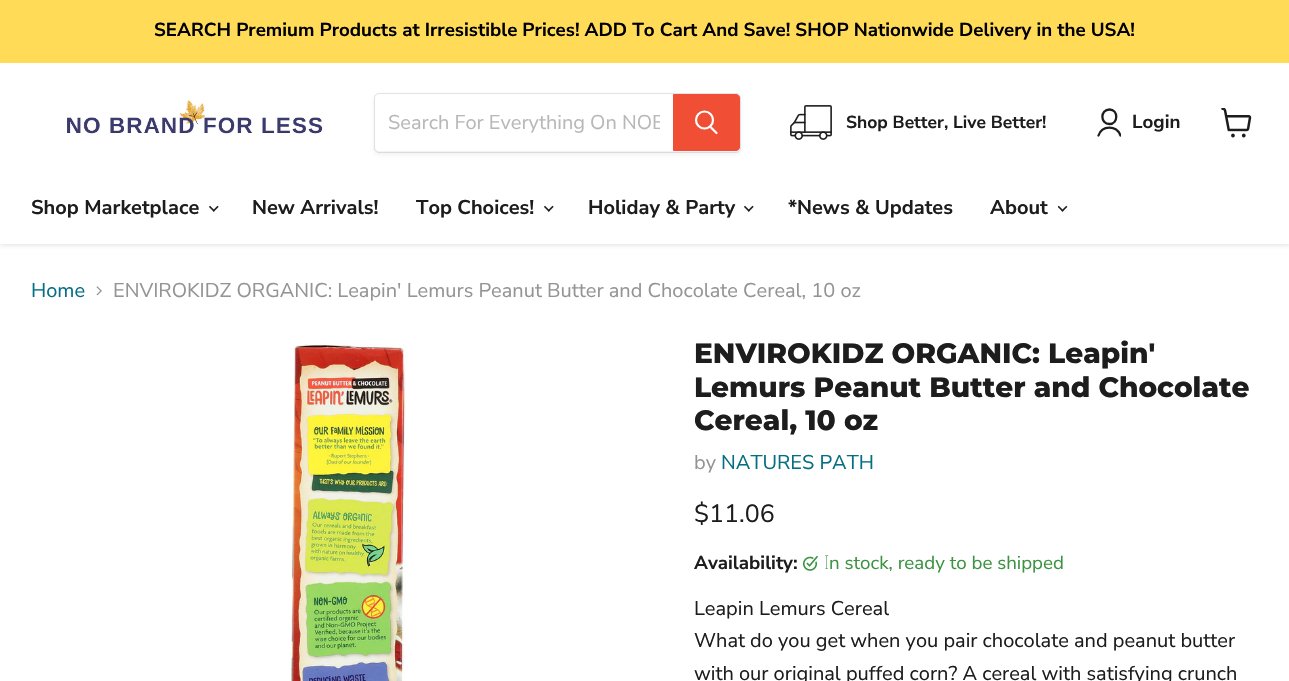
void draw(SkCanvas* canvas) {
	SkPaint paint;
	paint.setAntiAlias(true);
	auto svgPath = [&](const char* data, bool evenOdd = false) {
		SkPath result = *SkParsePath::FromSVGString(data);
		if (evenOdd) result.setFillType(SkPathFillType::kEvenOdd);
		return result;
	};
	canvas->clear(0xffffffff);
	paint.setColor(0x40808080);
	paint.setMaskFilter(SkMaskFilter::MakeBlur(kNormal_SkBlurStyle, 2.5));
	canvas->drawRect(SkRect::MakeXYWH(0, 64, 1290, 181), paint);
	paint.setMaskFilter(nullptr);
	paint.setColor(0xffffdb58);
	canvas->drawRect(SkRect::MakeXYWH(0, 0, 1289, 63), paint);
	SkFont f1(fontMgr->matchFamilyStyle("Nunito Sans", SkFontStyle::Bold()), 18.75);
	f1.setSubpixel(true);
	paint.setColor(0xff000000);
	canvas->drawString("SEARCH Premium Products at Irresistible Prices! ADD To Cart And Save! SHOP Nationwide Delivery in the USA!", 154, 36, f1, paint);
	paint.setColor(0xffffffff);
	canvas->drawRect(SkRect::MakeXYWH(0, 63, 1289, 181), paint);
	canvas->drawImageRect(SkImages::DeferredFromEncodedData(SkData::MakeFromFileName("img1.png")), SkRect::MakeXYWH(67, 100, 256, 34), SkSamplingOptions());
	paint.setColor(0x1c808080);
	paint.setMaskFilter(SkMaskFilter::MakeBlur(kNormal_SkBlurStyle, 2));
	canvas->drawRoundRect(SkRect::MakeXYWH(374, 95, 367, 60), 5, 5, paint);
	paint.setMaskFilter(nullptr);
	paint.setStroke(true);
	paint.setStrokeWidth(1);
	paint.setColor(0x33808080);
	canvas->drawRoundRect(SkRect::MakeXYWH(374.5, 93.5, 366, 59), 4.5, 4.5, paint);
	paint.setStroke(false);
	paint.setColor(0xffffffff);
	canvas->drawPath(svgPath("M379 94H673V151H379C377 151 375 149 375 147V98C375 96 377 94 379 94Z"), paint);
	canvas->save();
	canvas->clipRect(SkRect::MakeXYWH(388, 109, 272, 27));
	SkFont f2(fontMgr->matchFamilyStyle("Nunito Sans", SkFontStyle::Normal()), 20);
	f2.setSubpixel(true);
	paint.setColor(0xffb8b8b8);
	canvas->drawString("Search For Everything On NOB", 388, 129, f2, paint);
	canvas->restore();
	paint.setColor(0xfff04f36);
	canvas->drawPath(svgPath("M673.5 94.5H736C738 94.5 739.5 96 739.5 98V147C739.5 149 738 150.5 736 150.5H673.5Z"), paint);
	paint.setStroke(true);
	canvas->drawPath(svgPath("M673.5 94.5H736C738 94.5 739.5 96 739.5 98V147C739.5 149 738 150.5 736 150.5H673.5Z"), paint);
	paint.setStrokeWidth(2.2);
	paint.setStrokeCap(SkPaint::kRound_Cap);
	paint.setColor(0xffffffff);
	canvas->drawPath(svgPath("M716.5 133L710.5 127"), paint);
	paint.setStrokeCap(SkPaint::kButt_Cap);
	canvas->drawCircle(704.5, 120, 8.5, paint);
	canvas->drawImageRect(SkImages::DeferredFromEncodedData(SkData::MakeFromFileName("img2.png")), SkRect::MakeXYWH(790, 105, 42, 35), SkSamplingOptions());
	SkFont f3(fontMgr->matchFamilyStyle("Nunito Sans", SkFontStyle::Bold()), 17.5);
	f3.setSubpixel(true);
	paint.setStroke(false);
	paint.setColor(0xff1d1d1d);
	canvas->drawString("Shop Better, Live Better!", 846, 128, f3, paint);
	paint.setStroke(true);
	paint.setStrokeWidth(2.3);
	paint.setStrokeCap(SkPaint::kRound_Cap);
	paint.setStrokeJoin(SkPaint::kRound_Join);
	canvas->drawPath(svgPath("M1109.5 124C1118.5 124 1118.5 109.5 1109.5 109.5C1100 109.5 1100 124 1109.5 124Z"), paint);
	canvas->save();
	canvas->clipRect(SkRect::MakeXYWH(1096, 108, 25, 30));
	canvas->drawPath(svgPath("M1120.5 135.5C1116.5 125 1102 125 1098.5 135.5"), paint);
	canvas->restore();
	paint.setStroke(false);
	canvas->drawString("Login", 1132, 128, f1, paint);
	canvas->drawImageRect(SkImages::DeferredFromEncodedData(SkData::MakeFromFileName("img3.png")), SkRect::MakeXYWH(1221, 108, 31, 30), SkSamplingOptions());
	SkFont f4(fontMgr->matchFamilyStyle("Nunito Sans", SkFontStyle::Bold()), 20);
	f4.setSubpixel(true);
	canvas->drawString("Shop Marketplace", 31, 214, f4, paint);
	canvas->drawImageRect(SkImages::DeferredFromEncodedData(SkData::MakeFromFileName("img4.png")), SkRect::MakeXYWH(209, 205, 10, 7), SkSamplingOptions());
	canvas->drawString("New Arrivals!", 252, 214, f4, paint);
	canvas->drawString("Top Choices!", 416, 214, f4, paint);
	canvas->drawImageRect(SkImages::DeferredFromEncodedData(SkData::MakeFromFileName("img4.png")), SkRect::MakeXYWH(544, 205, 10, 7), SkSamplingOptions());
	canvas->drawString("Holiday & Party", 588, 214, f4, paint);
	canvas->drawImageRect(SkImages::DeferredFromEncodedData(SkData::MakeFromFileName("img4.png")), SkRect::MakeXYWH(744, 205, 10, 7), SkSamplingOptions());
	canvas->drawString("*News & Updates", 788, 214, f4, paint);
	canvas->drawString("About", 990, 214, f4, paint);
	canvas->drawImageRect(SkImages::DeferredFromEncodedData(SkData::MakeFromFileName("img5.png")), SkRect::MakeXYWH(1058, 205, 10, 7), SkSamplingOptions());
	paint.setColor(0xff046e82);
	canvas->drawString("Home", 31, 297, f2, paint);
	canvas->drawImageRect(SkImages::DeferredFromEncodedData(SkData::MakeFromFileName("img6.png")), SkRect::MakeXYWH(96, 286, 6, 10), SkSamplingOptions());
	paint.setColor(0xff949494);
	canvas->drawString("ENVIROKIDZ ORGANIC: Leapin' Lemurs Peanut Butter and Chocolate Cereal, 10 oz", 113, 297, f2, paint);
	canvas->drawImageRect(SkImages::DeferredFromEncodedData(SkData::MakeFromFileName("img7.png")), SkRect::MakeXYWH(289, 344, 118, 337), SkSamplingOptions());
	SkFont f5(fontMgr->matchFamilyStyle("Montserrat", SkFontStyle(800, SkFontStyle::kNormal_Width, SkFontStyle::kUpright_Slant)), 28);
	f5.setSubpixel(true);
	paint.setColor(0xff1d1d1d);
	canvas->drawString("ENVIROKIDZ ORGANIC: Leapin'", 694, 363, f5, paint);
	canvas->drawString("Lemurs Peanut Butter and Chocolate", 694, 397, f5, paint);
	canvas->drawString("Cereal, 10 oz", 694, 430, f5, paint);
	paint.setColor(0xff949494);
	canvas->drawString("by", 694, 469, f2, paint);
	paint.setColor(0xff046e82);
	canvas->drawString("NATURES PATH", 721, 469, f2, paint);
	SkFont f6(fontMgr->matchFamilyStyle("Nunito Sans", SkFontStyle::Normal()), 25);
	f6.setSubpixel(true);
	paint.setColor(0xff1d1d1d);
	canvas->drawString("$11.06", 694, 522, f6, paint);
	canvas->drawString("Availability:", 694, 569, f1, paint);
	canvas->drawImageRect(SkImages::DeferredFromEncodedData(SkData::MakeFromFileName("img8.png")), SkRect::MakeXYWH(803, 555, 15, 16), SkSamplingOptions());
	SkFont f7(fontMgr->matchFamilyStyle("Noto Sans", SkFontStyle(100, SkFontStyle::kNormal_Width, SkFontStyle::kUpright_Slant)), 18.75);
	f7.setSubpixel(true);
	paint.setColor(0xff3c9342);
	canvas->drawString("I", 824, 569, f7, paint);
	SkFont f8(fontMgr->matchFamilyStyle("Nunito Sans", SkFontStyle::Normal()), 18.75);
	f8.setSubpixel(true);
	canvas->drawString("n stock, ready to be shipped", 829, 569, f8, paint);
	paint.setColor(0xff1d1d1d);
	canvas->drawString("Leapin Lemurs Cereal", 694, 615, f2, paint);
	canvas->drawString("What do you get when you pair chocolate and peanut butter", 694, 647, f2, paint);
	canvas->drawString("with our original puffed corn? A cereal with satisfying crunch", 694, 680, f2, paint);
}
